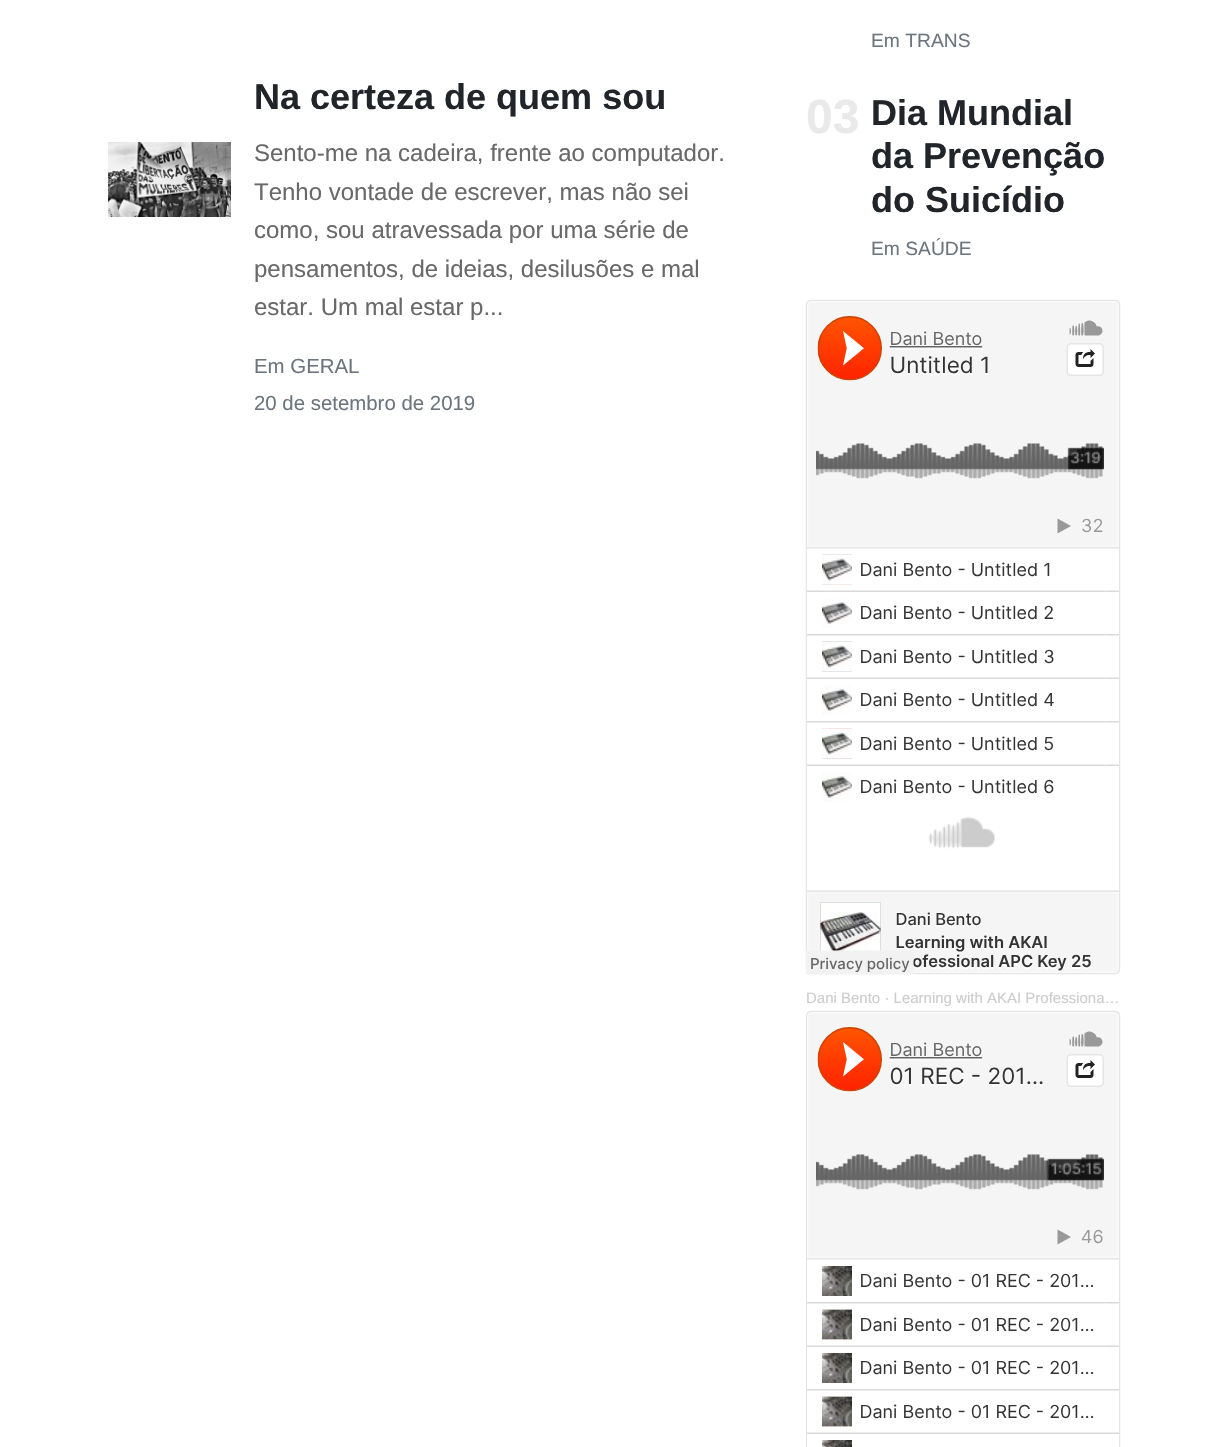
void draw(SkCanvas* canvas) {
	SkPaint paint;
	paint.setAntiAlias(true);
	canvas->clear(0xffffffff);
	canvas->drawImageRect(SkImages::DeferredFromEncodedData(SkData::MakeFromFileName("img1.png")), SkRect::MakeXYWH(108, 142, 123, 75), SkSamplingOptions());
	SkFont f1(fontMgr->matchFamilyStyle("Liberation Sans", SkFontStyle::Bold()), 36);
	f1.setSubpixel(true);
	paint.setColor(0xff212529);
	canvas->drawString("Na certeza de quem sou", 254, 109, f1, paint);
	SkFont f2(fontMgr->matchFamilyStyle("Liberation Sans", SkFontStyle::Normal()), 24);
	f2.setSubpixel(true);
	paint.setColor(0xff696969);
	canvas->drawString("Sento-me na cadeira, frente ao computador.", 254, 161, f2, paint);
	canvas->drawString("Tenho vontade de escrever, mas não sei", 254, 200, f2, paint);
	canvas->drawString("como, sou atravessada por uma série de", 254, 238, f2, paint);
	canvas->drawString("pensamentos, de ideias, desilusões e mal", 254, 277, f2, paint);
	canvas->drawString("estar. Um mal estar p...", 254, 315, f2, paint);
	SkFont f3(fontMgr->matchFamilyStyle("Liberation Sans", SkFontStyle::Normal()), 20.4);
	f3.setSubpixel(true);
	paint.setColor(0xff6c757d);
	canvas->drawString("Em GERAL", 254, 373, f3, paint);
	canvas->drawString("20 de setembro de 2019", 254, 410, f3, paint);
	SkFont f4(fontMgr->matchFamilyStyle("Liberation Sans", SkFontStyle::Normal()), 19.25);
	f4.setSubpixel(true);
	canvas->drawString("Em TRANS", 871, 47, f4, paint);
	SkFont f5(fontMgr->matchFamilyStyle("Liberation Sans", SkFontStyle::Bold()), 48);
	f5.setSubpixel(true);
	paint.setColor(0xffe9e9ea);
	canvas->drawString("03", 806, 133, f5, paint);
	paint.setColor(0xff212529);
	canvas->drawString("Dia Mundial", 871, 125, f1, paint);
	canvas->drawString("da Prevenção", 871, 168, f1, paint);
	canvas->drawString("do Suicídio", 871, 212, f1, paint);
	paint.setColor(0xff6c757d);
	canvas->drawString("Em SAÚDE", 871, 255, f4, paint);
	canvas->drawImageRect(SkImages::DeferredFromEncodedData(SkData::MakeFromFileName("img2.png")), SkRect::MakeXYWH(805, 299, 316, 676), SkSamplingOptions());
	SkFont f6(fontMgr->matchFamilyStyle("Liberation Sans", SkFontStyle::Normal()), 15);
	f6.setSubpixel(true);
	paint.setColor(0xffcccccc);
	canvas->drawString("Dani Bento · Learning with AKAI Professiona…", 806, 1003, f6, paint);
	canvas->drawImageRect(SkImages::DeferredFromEncodedData(SkData::MakeFromFileName("img3.png")), SkRect::MakeXYWH(806, 1010, 315, 437), SkSamplingOptions());
}
